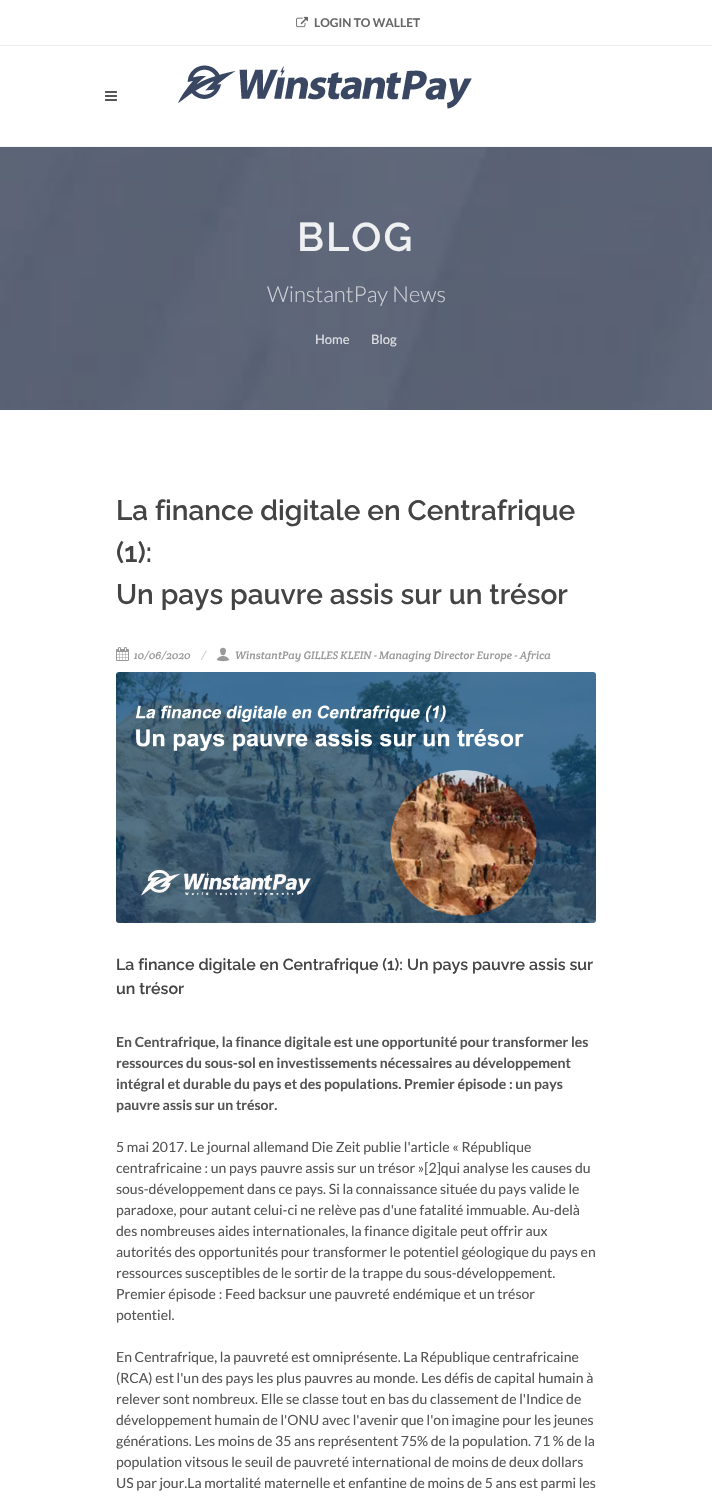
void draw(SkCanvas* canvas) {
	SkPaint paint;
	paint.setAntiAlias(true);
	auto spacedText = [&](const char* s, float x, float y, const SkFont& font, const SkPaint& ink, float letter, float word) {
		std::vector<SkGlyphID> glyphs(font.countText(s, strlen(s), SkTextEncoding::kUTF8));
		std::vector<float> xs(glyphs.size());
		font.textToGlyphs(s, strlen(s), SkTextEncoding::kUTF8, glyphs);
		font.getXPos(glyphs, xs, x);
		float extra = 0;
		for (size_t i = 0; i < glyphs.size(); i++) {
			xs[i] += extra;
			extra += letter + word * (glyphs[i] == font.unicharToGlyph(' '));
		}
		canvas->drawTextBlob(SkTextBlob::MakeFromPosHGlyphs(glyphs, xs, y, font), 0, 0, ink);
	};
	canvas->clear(0xffffffff);
	paint.setColor(0xffeeeeee);
	canvas->drawRect(SkRect::MakeXYWH(0, 45, 712, 1), paint);
	canvas->drawImageRect(SkImages::DeferredFromEncodedData(SkData::MakeFromFileName("img1.png")), SkRect::MakeXYWH(296, 16, 12, 12), SkSamplingOptions());
	SkFont f1(fontMgr->matchFamilyStyle("Lato", SkFontStyle::Bold()), 12);
	f1.setSubpixel(true);
	paint.setColor(0xff666666);
	canvas->drawString("LOGIN TO WALLET", 314, 27, f1, paint);
	paint.setColor(0xfff5f5f5);
	canvas->drawRect(SkRect::MakeXYWH(0, 146, 712, 1), paint);
	canvas->drawImageRect(SkImages::DeferredFromEncodedData(SkData::MakeFromFileName("img2.png")), SkRect::MakeXYWH(105, 91, 12, 10), SkSamplingOptions());
	canvas->drawImageRect(SkImages::DeferredFromEncodedData(SkData::MakeFromFileName("img3.png")), SkRect::MakeXYWH(178, 65, 294, 44), SkSamplingOptions());
	canvas->drawImageRect(SkImages::DeferredFromEncodedData(SkData::MakeFromFileName("img4.png")), SkRect::MakeXYWH(0, 147, 712, 263), SkSamplingOptions());
	SkFont f2(fontMgr->matchFamilyStyle("Raleway", SkFontStyle(600, SkFontStyle::kNormal_Width, SkFontStyle::kUpright_Slant)), 40);
	f2.setSubpixel(true);
	paint.setColor(0xffeff0f2);
	spacedText("BLOG", 297, 251, f2, paint, 2, 0);
	SkFont f3(fontMgr->matchFamilyStyle("Lato", SkFontStyle(300, SkFontStyle::kNormal_Width, SkFontStyle::kUpright_Slant)), 22);
	f3.setSubpixel(true);
	paint.setColor(0xffcfd1d7);
	canvas->drawString("WinstantPay News", 267, 302, f3, paint);
	SkFont f4(fontMgr->matchFamilyStyle("Lato", SkFontStyle::Normal()), 13);
	f4.setSubpixel(true);
	paint.setColor(0xffdfe0e4);
	canvas->drawString("Home", 315, 344, f4, paint);
	canvas->drawString("Blog", 371, 344, f4, paint);
	SkFont f5(fontMgr->matchFamilyStyle("Raleway", SkFontStyle(600, SkFontStyle::kNormal_Width, SkFontStyle::kUpright_Slant)), 28);
	f5.setSubpixel(true);
	paint.setColor(0xff444444);
	canvas->drawString("La finance digitale en Centrafrique", 116, 520, f5, paint);
	canvas->drawString("(1):", 116, 562, f5, paint);
	canvas->drawString("Un pays pauvre assis sur un trésor", 116, 604, f5, paint);
	canvas->drawImageRect(SkImages::DeferredFromEncodedData(SkData::MakeFromFileName("img5.png")), SkRect::MakeXYWH(116, 647, 13, 14), SkSamplingOptions());
	SkFont f6(fontMgr->matchFamilyStyle("Crete Round", SkFontStyle::Italic()), 11);
	f6.setSubpixel(true);
	paint.setColor(0xff999999);
	canvas->drawString("10/06/2020", 134, 659, f6, paint);
	paint.setColor(0xffcccccc);
	canvas->drawString("/", 201, 659, f6, paint);
	canvas->drawImageRect(SkImages::DeferredFromEncodedData(SkData::MakeFromFileName("img6.png")), SkRect::MakeXYWH(216, 647, 14, 15), SkSamplingOptions());
	paint.setColor(0xff999999);
	canvas->drawString("WinstantPay GILLES KLEIN - Managing Director Europe - Africa", 235, 659, f6, paint);
	canvas->drawImageRect(SkImages::DeferredFromEncodedData(SkData::MakeFromFileName("img7.png")), SkRect::MakeXYWH(116, 672, 480, 251), SkSamplingOptions());
	SkFont f7(fontMgr->matchFamilyStyle("Raleway", SkFontStyle(600, SkFontStyle::kNormal_Width, SkFontStyle::kUpright_Slant)), 16);
	f7.setSubpixel(true);
	paint.setColor(0xff444444);
	canvas->drawString("La finance digitale en Centrafrique (1): Un pays pauvre assis sur", 116, 970, f7, paint);
	canvas->drawString("un trésor", 116, 994, f7, paint);
	SkFont f8(fontMgr->matchFamilyStyle("Lato", SkFontStyle::Bold()), 14);
	f8.setSubpixel(true);
	paint.setColor(0xff555555);
	canvas->drawString("En Centrafrique, la finance digitale est une opportunité pour transformer les", 116, 1047, f8, paint);
	canvas->drawString("ressources du sous-sol en investissements nécessaires au développement", 116, 1068, f8, paint);
	canvas->drawString("intégral et durable du pays et des populations. Premier épisode : un pays", 116, 1089, f8, paint);
	canvas->drawString("pauvre assis sur un trésor.", 116, 1110, f8, paint);
	SkFont f9(fontMgr->matchFamilyStyle("Lato", SkFontStyle::Normal()), 14);
	f9.setSubpixel(true);
	canvas->drawString("5 mai 2017. Le journal allemand Die Zeit publie l'article « République", 116, 1152, f9, paint);
	canvas->drawString("centrafricaine : un pays pauvre assis sur un trésor »[2]qui analyse les causes du", 116, 1173, f9, paint);
	canvas->drawString("sous-développement dans ce pays. Si la connaissance située du pays valide le", 116, 1194, f9, paint);
	canvas->drawString("paradoxe, pour autant celui-ci ne relève pas d'une fatalité immuable. Au-delà", 116, 1215, f9, paint);
	canvas->drawString("des nombreuses aides internationales, la finance digitale peut offrir aux", 116, 1236, f9, paint);
	canvas->drawString("autorités des opportunités pour transformer le potentiel géologique du pays en", 116, 1257, f9, paint);
	canvas->drawString("ressources susceptibles de le sortir de la trappe du sous-développement.", 116, 1278, f9, paint);
	canvas->drawString("Premier épisode : Feed backsur une pauvreté endémique et un trésor", 116, 1299, f9, paint);
	canvas->drawString("potentiel.", 116, 1320, f9, paint);
	canvas->drawString("En Centrafrique, la pauvreté est omniprésente. La République centrafricaine", 116, 1362, f9, paint);
	canvas->drawString("(RCA) est l'un des pays les plus pauvres au monde. Les défis de capital humain à", 116, 1383, f9, paint);
	canvas->drawString("relever sont nombreux. Elle se classe tout en bas du classement de l'Indice de", 116, 1404, f9, paint);
	canvas->drawString("développement humain de l'ONU avec l'avenir que l'on imagine pour les jeunes", 116, 1425, f9, paint);
	canvas->drawString("générations. Les moins de 35 ans représentent 75% de la population. 71 % de la", 116, 1446, f9, paint);
	canvas->drawString("population vitsous le seuil de pauvreté international de moins de deux dollars", 116, 1467, f9, paint);
	canvas->drawString("US par jour.La mortalité maternelle et enfantine de moins de 5 ans est parmi les", 116, 1488, f9, paint);
}
